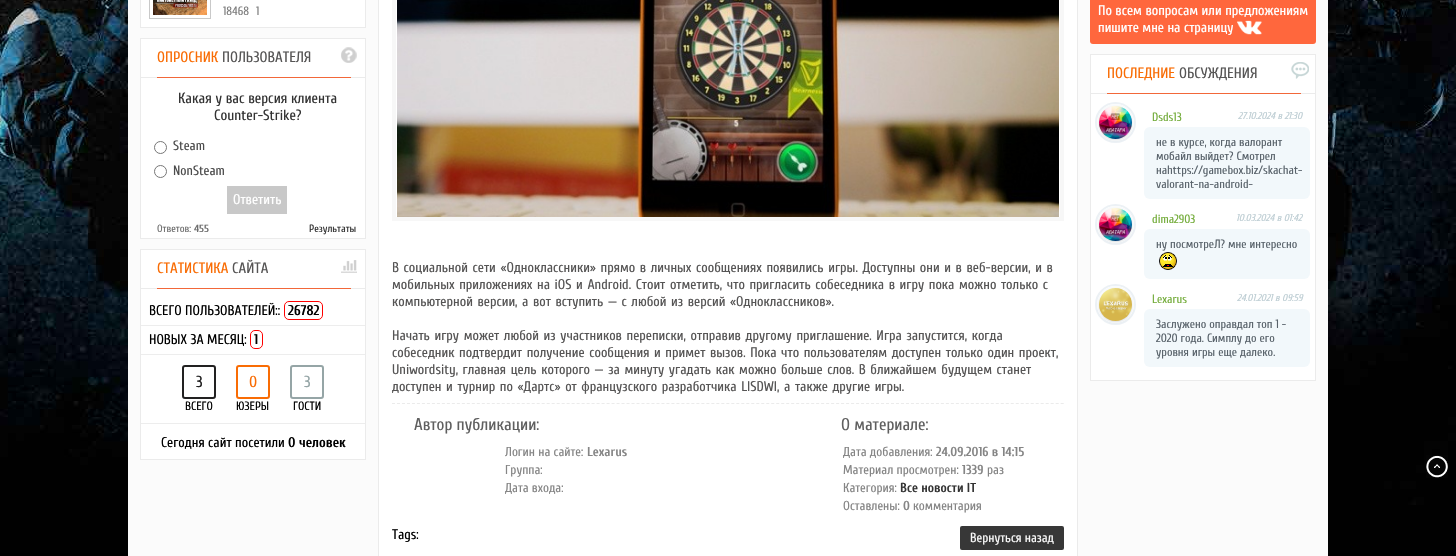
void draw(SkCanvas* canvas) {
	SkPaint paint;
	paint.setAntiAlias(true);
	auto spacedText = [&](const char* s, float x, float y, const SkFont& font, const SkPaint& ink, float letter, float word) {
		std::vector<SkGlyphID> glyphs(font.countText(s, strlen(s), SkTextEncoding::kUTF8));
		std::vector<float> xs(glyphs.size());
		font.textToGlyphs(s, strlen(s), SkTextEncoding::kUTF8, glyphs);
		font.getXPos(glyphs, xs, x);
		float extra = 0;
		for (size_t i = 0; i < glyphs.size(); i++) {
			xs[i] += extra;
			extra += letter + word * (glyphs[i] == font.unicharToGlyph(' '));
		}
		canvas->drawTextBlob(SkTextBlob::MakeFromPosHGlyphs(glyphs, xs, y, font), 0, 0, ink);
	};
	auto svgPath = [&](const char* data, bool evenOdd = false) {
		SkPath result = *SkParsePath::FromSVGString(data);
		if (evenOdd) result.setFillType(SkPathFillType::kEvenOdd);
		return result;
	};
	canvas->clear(0xff000000);
	canvas->drawImageRect(SkImages::DeferredFromEncodedData(SkData::MakeFromFileName("img1.png")), SkRect::MakeXYWH(0, 0, 1456, 553), SkSamplingOptions());
	paint.setColor(0xfffbfbfb);
	canvas->drawRect(SkRect::MakeXYWH(128, 0, 1200, 556), paint);
	paint.setColor(0xffffffff);
	canvas->drawRect(SkRect::MakeXYWH(140.5, -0.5, 225, 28), paint);
	paint.setStroke(true);
	paint.setStrokeWidth(1);
	paint.setColor(0xffebebeb);
	canvas->drawRect(SkRect::MakeXYWH(140.5, -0.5, 225, 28), paint);
	paint.setColor(0xffc9c9c9);
	canvas->drawRect(SkRect::MakeXYWH(149.5, -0.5, 61, 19), paint);
	canvas->drawImageRect(SkImages::DeferredFromEncodedData(SkData::MakeFromFileName("img2.png")), SkRect::MakeXYWH(153, 0, 54, 15), SkSamplingOptions());
	SkFont f1(fontMgr->matchFamilyStyle("Cuprum", SkFontStyle::Normal()), 12);
	f1.setSubpixel(true);
	paint.setStroke(false);
	paint.setColor(0xff7f7f7f);
	canvas->drawString("18468", 223, 15, f1, paint);
	canvas->drawString("1", 256, 15, f1, paint);
	paint.setColor(0xffffffff);
	canvas->drawRect(SkRect::MakeXYWH(140.5, 38.5, 225, 200), paint);
	paint.setStroke(true);
	paint.setColor(0xffebebeb);
	canvas->drawRect(SkRect::MakeXYWH(140.5, 38.5, 225, 200), paint);
	canvas->drawImageRect(SkImages::DeferredFromEncodedData(SkData::MakeFromFileName("img3.png")), SkRect::MakeXYWH(341, 47, 16, 16), SkSamplingOptions());
	paint.setStroke(false);
	canvas->drawRect(SkRect::MakeXYWH(141, 77, 224, 1), paint);
	SkFont f2(fontMgr->matchFamilyStyle("Cuprum", SkFontStyle::Normal()), 15);
	f2.setSubpixel(true);
	paint.setColor(0xfff96c04);
	canvas->drawString("ОПРОСНИК", 157, 62, f2, paint);
	paint.setColor(0xff565555);
	canvas->drawString("ПОЛЬЗОВАТЕЛЯ", 222, 62, f2, paint);
	paint.setColor(0xfff26739);
	canvas->drawRect(SkRect::MakeXYWH(157, 77, 194, 1), paint);
	SkFont f3(fontMgr->matchFamilyStyle("Cuprum", SkFontStyle::Normal()), 14.75);
	f3.setSubpixel(true);
	paint.setColor(0xff333333);
	canvas->drawString("Какая у вас версия клиента", 178, 103, f3, paint);
	canvas->drawString("Counter-Strike?", 214, 120, f3, paint);
	paint.setStroke(true);
	paint.setColor(0xff767676);
	canvas->drawCircle(160.5, 147.5, 6, paint);
	SkFont f4(fontMgr->matchFamilyStyle("Cuprum", SkFontStyle::Normal()), 13.5);
	f4.setSubpixel(true);
	paint.setStroke(false);
	paint.setColor(0xff4d4d4d);
	canvas->drawString("Steam", 173, 150, f4, paint);
	paint.setStroke(true);
	paint.setColor(0xff767676);
	canvas->drawCircle(160.5, 171.5, 6, paint);
	paint.setStroke(false);
	paint.setColor(0xff4d4d4d);
	canvas->drawString("NonSteam", 173, 175, f4, paint);
	paint.setColor(0xffc8c8c8);
	canvas->drawRect(SkRect::MakeXYWH(227, 186, 60, 28), paint);
	SkFont f5(fontMgr->matchFamilyStyle("Cuprum", SkFontStyle::Normal()), 14);
	f5.setSubpixel(true);
	paint.setColor(0xffffffff);
	canvas->drawString("Ответить", 233, 204, f5, paint);
	SkFont f6(fontMgr->matchFamilyStyle("Cuprum", SkFontStyle::Normal()), 10.5);
	f6.setSubpixel(true);
	paint.setColor(0xff6e6e6e);
	canvas->drawString("Ответов:", 157, 232, f6, paint);
	SkFont f7(fontMgr->matchFamilyStyle("Cuprum", SkFontStyle::Bold()), 10.5);
	f7.setSubpixel(true);
	canvas->drawString("455", 194, 232, f7, paint);
	paint.setColor(0xff333333);
	canvas->drawString("Результаты", 309, 232, f6, paint);
	paint.setColor(0xffffffff);
	canvas->drawRect(SkRect::MakeXYWH(140.5, 249.5, 225, 210), paint);
	paint.setStroke(true);
	paint.setColor(0xffebebeb);
	canvas->drawRect(SkRect::MakeXYWH(140.5, 249.5, 225, 210), paint);
	canvas->drawImageRect(SkImages::DeferredFromEncodedData(SkData::MakeFromFileName("img4.png")), SkRect::MakeXYWH(341, 260, 16, 13), SkSamplingOptions());
	paint.setStroke(false);
	canvas->drawRect(SkRect::MakeXYWH(141, 288, 224, 1), paint);
	paint.setColor(0xfff96c04);
	canvas->drawString("СТАТИСТИКА", 157, 273, f2, paint);
	paint.setColor(0xff565555);
	canvas->drawString("САЙТА", 232, 273, f2, paint);
	paint.setColor(0xfff26739);
	canvas->drawRect(SkRect::MakeXYWH(157, 288, 194, 1), paint);
	paint.setColor(0xffededed);
	canvas->drawRect(SkRect::MakeXYWH(141, 325, 224, 1), paint);
	paint.setColor(0xff000000);
	canvas->drawString("ВСЕГО ПОЛЬЗОВАТЕЛЕЙ::", 149, 315, f5, paint);
	paint.setStroke(true);
	paint.setColor(0xffff0000);
	canvas->drawRoundRect(SkRect::MakeXYWH(284.5, 301.5, 38, 18), 4.5, 4.5, paint);
	SkFont f8(fontMgr->matchFamilyStyle("Cuprum", SkFontStyle::Bold()), 14);
	f8.setSubpixel(true);
	paint.setStroke(false);
	paint.setColor(0xff000000);
	canvas->drawString("26782", 288, 315, f8, paint);
	paint.setColor(0xffededed);
	canvas->drawRect(SkRect::MakeXYWH(141, 354, 224, 1), paint);
	paint.setColor(0xff000000);
	canvas->drawString("НОВЫХ ЗА МЕСЯЦ:", 149, 344, f5, paint);
	paint.setStroke(true);
	paint.setColor(0xffff0000);
	canvas->drawRoundRect(SkRect::MakeXYWH(250.5, 330.5, 12, 18), 4.5, 4.5, paint);
	paint.setStroke(false);
	paint.setColor(0xff000000);
	canvas->drawString("1", 254, 344, f8, paint);
	paint.setStroke(true);
	paint.setStrokeWidth(2);
	paint.setColor(0xff222121);
	canvas->drawRoundRect(SkRect::MakeXYWH(183, 366, 32, 32), 2, 2, paint);
	SkFont f9(fontMgr->matchFamilyStyle("Cuprum", SkFontStyle::Normal()), 16);
	f9.setSubpixel(true);
	paint.setStroke(false);
	canvas->drawString("3", 196, 387, f9, paint);
	paint.setColor(0xff000000);
	canvas->drawString("ВСЕГО", 185, 410, f1, paint);
	paint.setStroke(true);
	paint.setColor(0xfff96c04);
	canvas->drawRoundRect(SkRect::MakeXYWH(237, 366, 32, 32), 2, 2, paint);
	paint.setStroke(false);
	canvas->drawString("0", 249, 387, f9, paint);
	paint.setColor(0xff000000);
	canvas->drawString("ЮЗЕРЫ", 236, 410, f1, paint);
	paint.setStroke(true);
	paint.setColor(0xff95a5a6);
	canvas->drawRoundRect(SkRect::MakeXYWH(291, 366, 32, 32), 2, 2, paint);
	paint.setStroke(false);
	canvas->drawString("3", 304, 387, f9, paint);
	paint.setColor(0xff000000);
	canvas->drawString("ГОСТИ", 293, 410, f1, paint);
	paint.setColor(0xffededed);
	canvas->drawRect(SkRect::MakeXYWH(141, 423, 224, 1), paint);
	paint.setColor(0xff000000);
	canvas->drawString("Сегодня сайт посетили", 161, 447, f5, paint);
	canvas->drawString("0 человек", 288, 447, f8, paint);
	paint.setColor(0xffffffff);
	canvas->drawRect(SkRect::MakeXYWH(378.5, -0.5, 699, 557), paint);
	paint.setStroke(true);
	paint.setStrokeWidth(1);
	paint.setColor(0xffebebeb);
	canvas->drawRect(SkRect::MakeXYWH(378.5, -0.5, 699, 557), paint);
	paint.setStrokeWidth(4);
	paint.setColor(0xfff7f7f7);
	canvas->drawRect(SkRect::MakeXYWH(394, -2, 668, 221), paint);
	canvas->drawImageRect(SkImages::DeferredFromEncodedData(SkData::MakeFromFileName("img5.png")), SkRect::MakeXYWH(397, 0, 662, 217), SkSamplingOptions());
	paint.setStrokeWidth(1);
	paint.setColor(0xffebebeb);
	paint.setPathEffect(SkDashPathEffect::Make({{3, 1.99f}}, 0));
	canvas->drawPath(svgPath("M392 403.5H1064"), paint);
	paint.setPathEffect(nullptr);
	paint.setStroke(false);
	paint.setColor(0xff565555);
	spacedText("В социальной сети «Одноклассники» прямо в личных сообщениях появились игры. Доступны они и в веб-версии, и в", 392, 272, f5, paint, 0, 1.1);
	spacedText("мобильных приложениях на iOS и Android. Стоит отметить, что пригласить собеседника в игру пока можно только с", 392, 289, f5, paint, 0, 1.1);
	spacedText("компьютерной версии, а вот вступить — с любой из версий «Одноклассников».", 392, 306, f5, paint, 0, 1.1);
	spacedText("Начать игру может любой из участников переписки, отправив другому приглашение. Игра запустится, когда", 392, 340, f5, paint, 0, 1.1);
	spacedText("собеседник подтвердит получение сообщения и примет вызов. Пока что пользователям доступен только один проект,", 392, 357, f5, paint, 0, 1.1);
	spacedText("Uniwordsity, главная цель которого — за минуту угадать как можно больше слов. В ближайшем будущем станет", 392, 374, f5, paint, 0, 1.1);
	spacedText("доступен и турнир по «Дартс» от французского разработчика LISDWI, а также другие игры.", 392, 391, f5, paint, 0, 1.1);
	SkFont f10(fontMgr->matchFamilyStyle("Cuprum", SkFontStyle::Normal()), 17);
	f10.setSubpixel(true);
	paint.setColor(0xff5f5f5f);
	canvas->drawString("Автор публикации:", 414, 430, f10, paint);
	SkFont f11(fontMgr->matchFamilyStyle("Cuprum", SkFontStyle::Normal()), 13);
	f11.setSubpixel(true);
	paint.setColor(0xff858585);
	canvas->drawString("Логин на сайте:", 505, 456, f11, paint);
	SkFont f12(fontMgr->matchFamilyStyle("Cuprum", SkFontStyle::Bold()), 13);
	f12.setSubpixel(true);
	canvas->drawString("Lexarus", 587, 456, f12, paint);
	canvas->drawString("Группа:", 505, 474, f11, paint);
	canvas->drawString("Дата входа:", 505, 492, f11, paint);
	paint.setColor(0xff5f5f5f);
	canvas->drawString("О материале:", 841, 430, f10, paint);
	paint.setColor(0xff858585);
	canvas->drawString("Дата добавления:", 843, 456, f11, paint);
	canvas->drawString("24.09.2016 в 14:15", 936, 456, f12, paint);
	canvas->drawString("Материал просмотрен:", 843, 474, f11, paint);
	canvas->drawString("1339", 962, 474, f12, paint);
	canvas->drawString("раз", 987, 474, f11, paint);
	canvas->drawString("Категория:", 843, 492, f11, paint);
	paint.setColor(0xff333333);
	canvas->drawString("Все новости IT", 900, 492, f12, paint);
	paint.setColor(0xff858585);
	canvas->drawString("Оставлены:", 843, 510, f11, paint);
	canvas->drawString("0", 903, 510, f12, paint);
	canvas->drawString("комментария", 913, 510, f11, paint);
	paint.setColor(0xff000000);
	canvas->drawString("Tags:", 392, 539, f5, paint);
	paint.setColor(0xff373737);
	canvas->drawRoundRect(SkRect::MakeXYWH(960, 526, 104, 24), 2, 2, paint);
	paint.setColor(0xfff8f8f8);
	canvas->drawString("Вернуться назад", 970, 542, f11, paint);
	paint.setColor(0xffff673d);
	canvas->drawRoundRect(SkRect::MakeXYWH(1090, -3, 226, 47), 3, 3, paint);
	paint.setColor(0xffffffff);
	canvas->drawString("По всем вопросам или предложениям", 1098, 15, f5, paint);
	canvas->drawString("пишите мне на страницу", 1098, 32, f5, paint);
	canvas->drawImageRect(SkImages::DeferredFromEncodedData(SkData::MakeFromFileName("img6.png")), SkRect::MakeXYWH(1237, 20, 25, 15), SkSamplingOptions());
	canvas->drawRect(SkRect::MakeXYWH(1090.5, 54.5, 225, 326), paint);
	paint.setStroke(true);
	paint.setColor(0xffebebeb);
	canvas->drawRect(SkRect::MakeXYWH(1090.5, 54.5, 225, 326), paint);
	canvas->drawImageRect(SkImages::DeferredFromEncodedData(SkData::MakeFromFileName("img7.png")), SkRect::MakeXYWH(1291, 62, 18, 17), SkSamplingOptions());
	paint.setStroke(false);
	canvas->drawRect(SkRect::MakeXYWH(1091, 93, 224, 1), paint);
	paint.setColor(0xfff96c04);
	canvas->drawString("ПОСЛЕДНИЕ", 1107, 78, f2, paint);
	paint.setColor(0xff565555);
	canvas->drawString("ОБСУЖДЕНИЯ", 1179, 78, f2, paint);
	paint.setColor(0xfff26739);
	canvas->drawRect(SkRect::MakeXYWH(1107, 93, 194, 1), paint);
	paint.setStroke(true);
	paint.setStrokeWidth(2);
	paint.setColor(0xffecf1f5);
	canvas->drawCircle(1115.5, 122.5, 19.5, paint);
	paint.setStroke(false);
	paint.setColor(0xfff9fbfc);
	canvas->drawCircle(1115.5, 122.5, 18.5, paint);
	paint.setColor(0x1c000000);
	paint.setMaskFilter(SkMaskFilter::MakeBlur(kNormal_SkBlurStyle, 1));
	canvas->drawRoundRect(SkRect::MakeXYWH(1099, 107, 33, 33), 16.5, 16.5, paint);
	paint.setMaskFilter(nullptr);
	canvas->drawImageRect(SkImages::DeferredFromEncodedData(SkData::MakeFromFileName("img8.png")), SkRect::MakeXYWH(1099, 106, 33, 33), SkSamplingOptions());
	paint.setColor(0xff73ac3a);
	canvas->drawString("Dsds13", 1152, 121, f1, paint);
	SkFont f13(fontMgr->matchFamilyStyle("Cuprum", SkFontStyle::Italic()), 10);
	f13.setSubpixel(true);
	paint.setColor(0xffbeced4);
	canvas->drawString("27.10.2024 в 21:30", 1238, 119, f13, paint);
	paint.setColor(0xfff2f8fb);
	canvas->drawRoundRect(SkRect::MakeXYWH(1144, 127, 166, 72), 6, 6, paint);
	paint.setColor(0xff59636b);
	canvas->drawString("не в курсе, когда валорант", 1156, 146, f1, paint);
	canvas->drawString("мобайл выйдет? Смотрел", 1156, 160, f1, paint);
	canvas->drawString("наhttps://gamebox.biz/skachat-", 1156, 174, f1, paint);
	canvas->drawString("valorant-na-android-", 1156, 188, f1, paint);
	paint.setStroke(true);
	paint.setColor(0xffecf1f5);
	canvas->drawCircle(1115.5, 224.5, 19.5, paint);
	paint.setStroke(false);
	paint.setColor(0xfff9fbfc);
	canvas->drawCircle(1115.5, 224.5, 18.5, paint);
	paint.setColor(0x1c000000);
	paint.setMaskFilter(SkMaskFilter::MakeBlur(kNormal_SkBlurStyle, 1));
	canvas->drawRoundRect(SkRect::MakeXYWH(1099, 209, 33, 33), 16.5, 16.5, paint);
	paint.setMaskFilter(nullptr);
	canvas->drawImageRect(SkImages::DeferredFromEncodedData(SkData::MakeFromFileName("img8.png")), SkRect::MakeXYWH(1099, 208, 33, 33), SkSamplingOptions());
	paint.setColor(0xff73ac3a);
	canvas->drawString("dima2903", 1152, 223, f1, paint);
	paint.setColor(0xffbeced4);
	canvas->drawString("10.03.2024 в 01:42", 1236, 221, f13, paint);
	paint.setColor(0xfff2f8fb);
	canvas->drawRoundRect(SkRect::MakeXYWH(1144, 229, 166, 50), 6, 6, paint);
	paint.setColor(0xff59636b);
	canvas->drawString("ну посмотреЛ? мне интересно", 1156, 248, f1, paint);
	canvas->drawImageRect(SkImages::DeferredFromEncodedData(SkData::MakeFromFileName("img9.png")), SkRect::MakeXYWH(1159, 252, 18, 18), SkSamplingOptions());
	paint.setStroke(true);
	paint.setColor(0xffecf1f5);
	canvas->drawCircle(1115.5, 304.5, 19.5, paint);
	paint.setStroke(false);
	paint.setColor(0xfff9fbfc);
	canvas->drawCircle(1115.5, 304.5, 18.5, paint);
	paint.setColor(0x1c000000);
	paint.setMaskFilter(SkMaskFilter::MakeBlur(kNormal_SkBlurStyle, 1));
	canvas->drawRoundRect(SkRect::MakeXYWH(1099, 289, 33, 33), 16.5, 16.5, paint);
	paint.setMaskFilter(nullptr);
	canvas->drawImageRect(SkImages::DeferredFromEncodedData(SkData::MakeFromFileName("img10.png")), SkRect::MakeXYWH(1099, 288, 33, 33), SkSamplingOptions());
	paint.setColor(0xff73ac3a);
	canvas->drawString("Lexarus", 1152, 303, f1, paint);
	paint.setColor(0xffbeced4);
	canvas->drawString("24.01.2021 в 09:59", 1237, 301, f13, paint);
	paint.setColor(0xfff2f8fb);
	canvas->drawRoundRect(SkRect::MakeXYWH(1144, 309, 166, 58), 6, 6, paint);
	paint.setColor(0xff59636b);
	canvas->drawString("Заслужено оправдал топ 1 -", 1156, 328, f1, paint);
	canvas->drawString("2020 года. Симплу до его", 1156, 342, f1, paint);
	canvas->drawString("уровня игры еще далеко.", 1156, 356, f1, paint);
	canvas->drawImageRect(SkImages::DeferredFromEncodedData(SkData::MakeFromFileName("img11.png")), SkRect::MakeXYWH(1426, 455, 22, 23), SkSamplingOptions());
}
